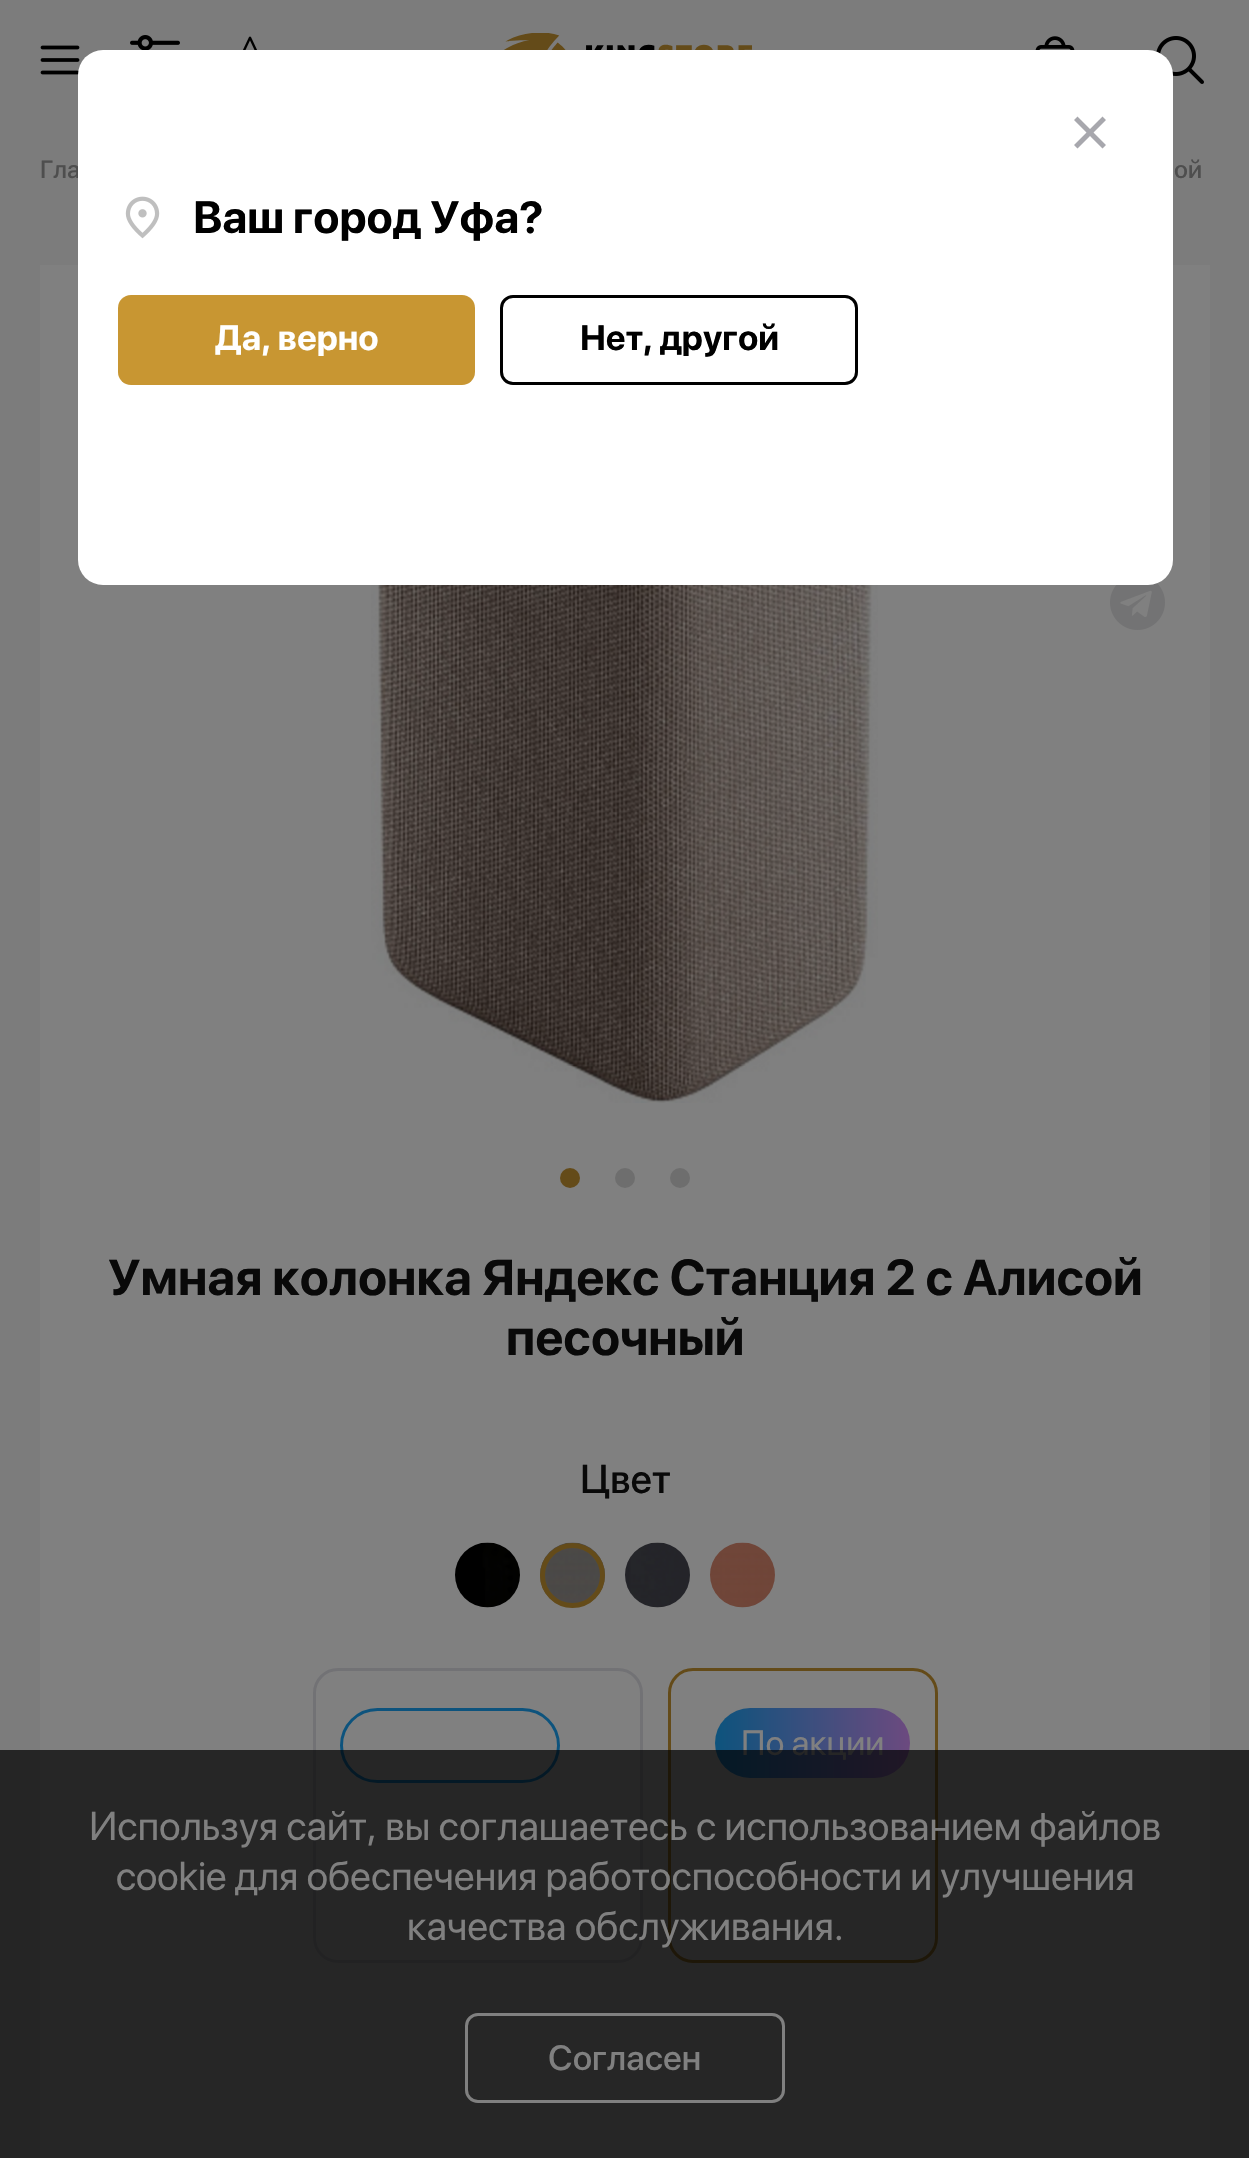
void draw(SkCanvas* canvas) {
	SkPaint paint;
	paint.setAntiAlias(true);
	auto svgPath = [&](const char* data, bool evenOdd = false) {
		SkPath result = *SkParsePath::FromSVGString(data);
		if (evenOdd) result.setFillType(SkPathFillType::kEvenOdd);
		return result;
	};
	canvas->clear(0xff7c7c7c);
	canvas->drawImageRect(SkImages::DeferredFromEncodedData(SkData::MakeFromFileName("img1.png")), SkRect::MakeXYWH(40, 45, 40, 30), SkSamplingOptions());
	canvas->drawImageRect(SkImages::DeferredFromEncodedData(SkData::MakeFromFileName("img2.png")), SkRect::MakeXYWH(130, 35, 50, 15), SkSamplingOptions());
	canvas->drawImageRect(SkImages::DeferredFromEncodedData(SkData::MakeFromFileName("img3.png")), SkRect::MakeXYWH(243, 36, 14, 14), SkSamplingOptions());
	canvas->drawImageRect(SkImages::DeferredFromEncodedData(SkData::MakeFromFileName("img4.png")), SkRect::MakeXYWH(504, 33, 248, 17), SkSamplingOptions());
	canvas->drawImageRect(SkImages::DeferredFromEncodedData(SkData::MakeFromFileName("img5.png")), SkRect::MakeXYWH(1035, 36, 40, 14), SkSamplingOptions());
	canvas->drawImageRect(SkImages::DeferredFromEncodedData(SkData::MakeFromFileName("img6.png")), SkRect::MakeXYWH(1156, 36, 48, 48), SkSamplingOptions());
	SkFont f1(fontMgr->matchFamilyStyle("SF Pro Display", SkFontStyle(500, SkFontStyle::kNormal_Width, SkFontStyle::kUpright_Slant)), 25);
	f1.setSubpixel(true);
	paint.setColor(0xff4e4e4e);
	canvas->drawString("Гла", 40, 178, f1, paint);
	canvas->drawString("ой", 1174, 178, f1, paint);
	paint.setColor(0xff808080);
	canvas->drawRect(SkRect::MakeXYWH(40, 265, 1170, 1893), paint);
	canvas->drawImageRect(SkImages::DeferredFromEncodedData(SkData::MakeFromFileName("img7.png")), SkRect::MakeXYWH(371, 585, 507, 518), SkSamplingOptions());
	paint.setColor(0xff644b19);
	canvas->drawCircle(570, 1178, 10, paint);
	paint.setColor(0xff6e6e6e);
	canvas->drawCircle(625, 1178, 10, paint);
	canvas->drawCircle(680, 1178, 10, paint);
	canvas->drawImageRect(SkImages::DeferredFromEncodedData(SkData::MakeFromFileName("img8.png")), SkRect::MakeXYWH(1110, 583, 55, 47), SkSamplingOptions());
	SkFont f2(fontMgr->matchFamilyStyle("SF Pro Display", SkFontStyle::Bold()), 50);
	f2.setSubpixel(true);
	paint.setColor(0xff090909);
	canvas->drawString("Умная колонка Яндекс Станция 2 с Алисой", 108, 1295, f2, paint);
	canvas->drawString("песочный", 506, 1355, f2, paint);
	SkFont f3(fontMgr->matchFamilyStyle("SF Pro Display", SkFontStyle(500, SkFontStyle::kNormal_Width, SkFontStyle::kUpright_Slant)), 40);
	f3.setSubpixel(true);
	canvas->drawString("Цвет", 580, 1493, f3, paint);
	canvas->drawImageRect(SkImages::DeferredFromEncodedData(SkData::MakeFromFileName("img9.png")), SkRect::MakeXYWH(455, 1542, 65, 66), SkSamplingOptions());
	canvas->drawImageRect(SkImages::DeferredFromEncodedData(SkData::MakeFromFileName("img10.png")), SkRect::MakeXYWH(540, 1542, 65, 66), SkSamplingOptions());
	paint.setStroke(true);
	paint.setStrokeWidth(5);
	paint.setColor(0xff644b19);
	canvas->drawCircle(572.5, 1575.5, 30, paint);
	canvas->drawImageRect(SkImages::DeferredFromEncodedData(SkData::MakeFromFileName("img11.png")), SkRect::MakeXYWH(625, 1542, 65, 66), SkSamplingOptions());
	canvas->drawImageRect(SkImages::DeferredFromEncodedData(SkData::MakeFromFileName("img12.png")), SkRect::MakeXYWH(710, 1542, 65, 66), SkSamplingOptions());
	paint.setStrokeWidth(3);
	paint.setColor(0xff727275);
	canvas->drawRoundRect(SkRect::MakeXYWH(314.5, 1669.5, 327, 292), 23.5, 23.5, paint);
	paint.setColor(0xff0d537d);
	canvas->drawRoundRect(SkRect::MakeXYWH(341.5, 1709.5, 217, 72), 36, 36, paint);
	paint.setColor(0xff644b19);
	canvas->drawRoundRect(SkRect::MakeXYWH(669.5, 1669.5, 267, 292), 23.5, 23.5, paint);
	paint.setStroke(false);
	{
		const SkColor colors[] = {0xff6c4a7f, 0xff0d537d};
		const float stops[] = {0, 1};
		const SkPoint ends[] = {{910, 1743}, {715, 1743}};
		paint.setShader(SkGradientShader::MakeLinear(ends, colors, stops, 2, SkTileMode::kClamp));
		paint.setAlpha(255);
	}
	canvas->drawRoundRect(SkRect::MakeXYWH(715, 1708, 195, 70), 35, 35, paint);
	SkFont f4(fontMgr->matchFamilyStyle("SF Pro Display", SkFontStyle::Normal()), 35);
	f4.setSubpixel(true);
	paint.setShader(nullptr);
	paint.setColor(0xff808080);
	canvas->drawString("По акции", 741, 1755, f4, paint);
	paint.setColor(0xffffffff);
	canvas->drawRoundRect(SkRect::MakeXYWH(78, 50, 1095, 535), 25, 25, paint);
	paint.setColor(0xffa7a7ad);
	canvas->drawPath(svgPath("M1090 129L1102.5 116.5L1106 120L1093.5 132.5L1106 145L1102.5 148.5L1090 136L1077.5 148.5L1074 145L1086.5 132.5L1074 120L1077.5 116.5Z"), paint);
	canvas->drawImageRect(SkImages::DeferredFromEncodedData(SkData::MakeFromFileName("img13.png")), SkRect::MakeXYWH(125, 196, 35, 43), SkSamplingOptions());
	SkFont f5(fontMgr->matchFamilyStyle("SF Pro Display", SkFontStyle::Bold()), 45);
	f5.setSubpixel(true);
	paint.setColor(0xff000000);
	canvas->drawString("Ваш город Уфа?", 193, 233, f5, paint);
	paint.setColor(0xffc89632);
	canvas->drawRoundRect(SkRect::MakeXYWH(118, 295, 357, 90), 13, 13, paint);
	SkFont f6(fontMgr->matchFamilyStyle("SF Pro Display", SkFontStyle::Bold()), 35);
	f6.setSubpixel(true);
	paint.setColor(0xffffffff);
	canvas->drawString("Да, верно", 215, 350, f6, paint);
	paint.setStroke(true);
	paint.setColor(0xff000000);
	canvas->drawRoundRect(SkRect::MakeXYWH(501.5, 296.5, 355, 87), 11.5, 11.5, paint);
	paint.setStroke(false);
	canvas->drawString("Нет, другой", 580, 350, f6, paint);
	paint.setColor(0xb3000000);
	canvas->drawRect(SkRect::MakeXYWH(0, 1750, 1249, 408), paint);
	SkFont f7(fontMgr->matchFamilyStyle("SF Pro Display", SkFontStyle::Normal()), 40);
	f7.setSubpixel(true);
	paint.setColor(0xff808080);
	canvas->drawString("Используя сайт, вы соглашаетесь с использованием файлов", 89, 1840, f7, paint);
	canvas->drawString("cookie для обеспечения работоспособности и улучшения", 116, 1890, f7, paint);
	canvas->drawString("качества обслуживания.", 407, 1940, f7, paint);
	paint.setStroke(true);
	canvas->drawRoundRect(SkRect::MakeXYWH(466.5, 2014.5, 317, 87), 11.5, 11.5, paint);
	SkFont f8(fontMgr->matchFamilyStyle("SF Pro Display", SkFontStyle(500, SkFontStyle::kNormal_Width, SkFontStyle::kUpright_Slant)), 35);
	f8.setSubpixel(true);
	paint.setStroke(false);
	canvas->drawString("Согласен", 548, 2070, f8, paint);
}
